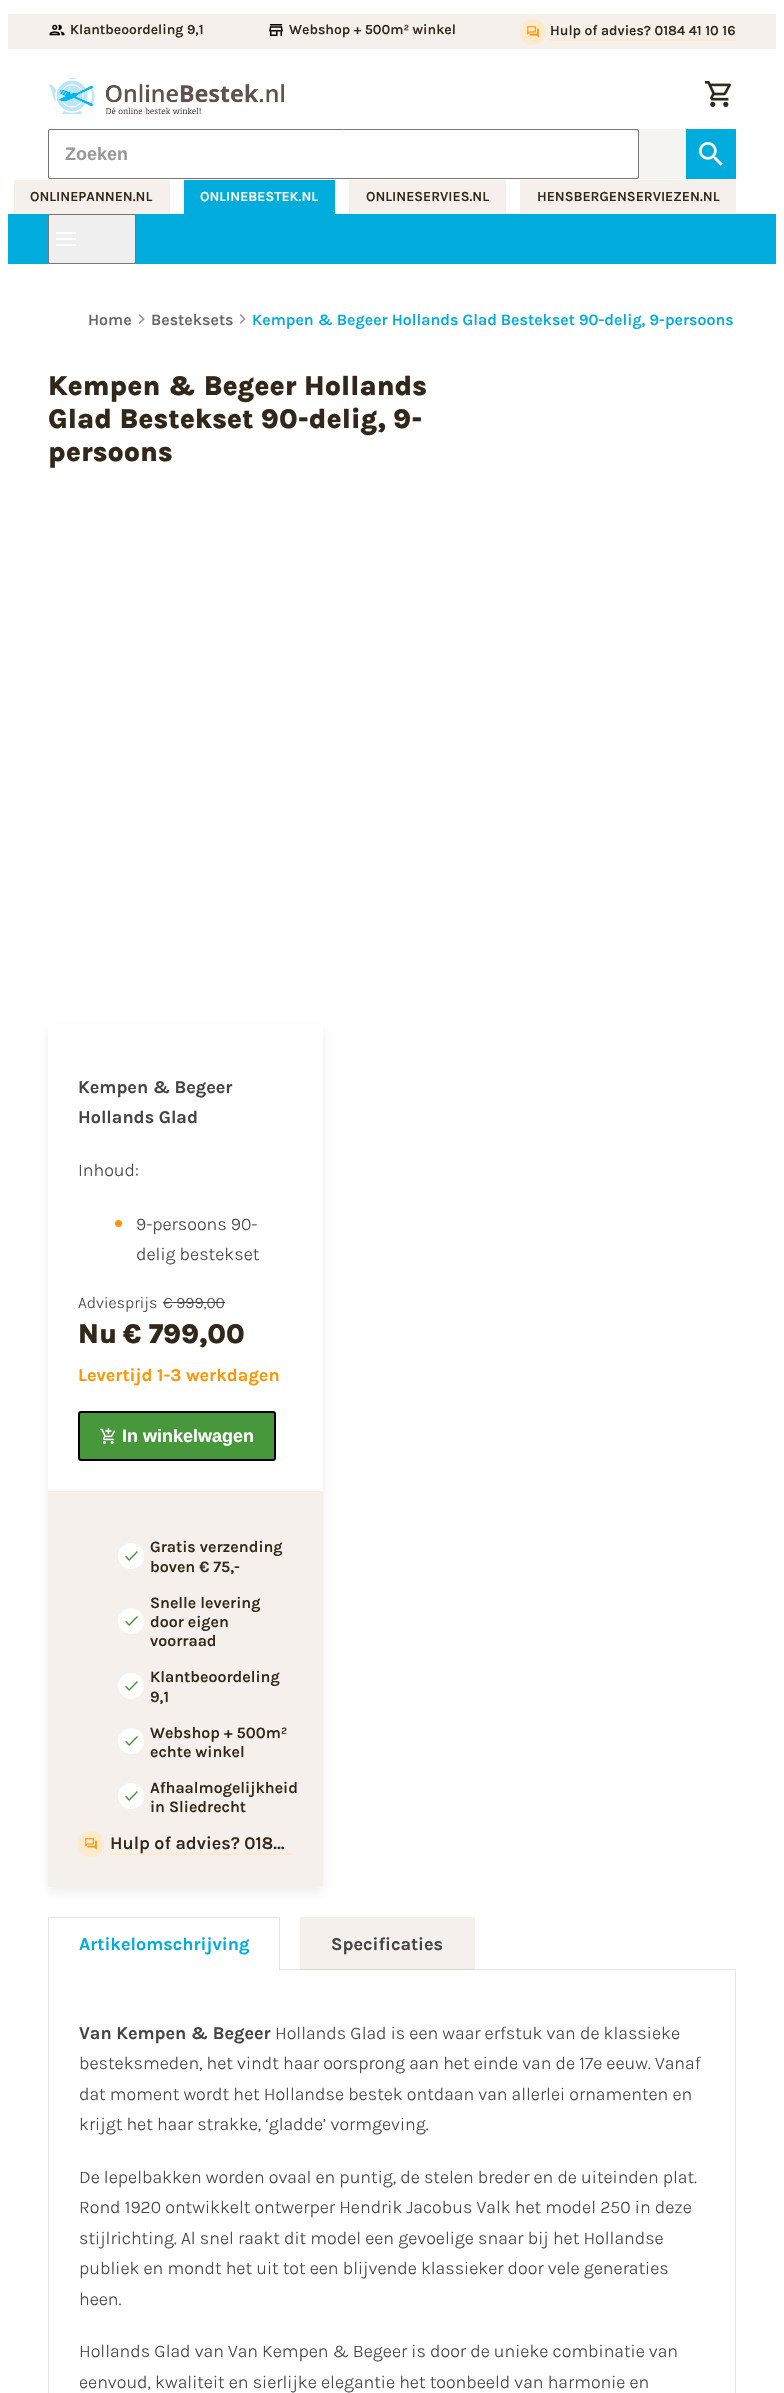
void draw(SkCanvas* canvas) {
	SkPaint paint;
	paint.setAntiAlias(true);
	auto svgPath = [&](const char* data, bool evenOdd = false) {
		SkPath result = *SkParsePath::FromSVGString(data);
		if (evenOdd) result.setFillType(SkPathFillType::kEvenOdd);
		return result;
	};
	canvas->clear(0xffffffff);
	paint.setColor(0xfff5f0eb);
	canvas->drawRect(SkRect::MakeXYWH(8, 14, 768, 35), paint);
	canvas->drawImageRect(SkImages::DeferredFromEncodedData(SkData::MakeFromFileName("img1.png")), SkRect::MakeXYWH(49, 24, 16, 12), SkSamplingOptions());
	SkFont f1(fontMgr->matchFamilyStyle("Karla", SkFontStyle(600, SkFontStyle::kNormal_Width, SkFontStyle::kUpright_Slant)), 14);
	f1.setSubpixel(true);
	paint.setColor(0xff33271a);
	canvas->drawString("Klantbeoordeling 9,1", 70, 34, f1, paint);
	canvas->drawImageRect(SkImages::DeferredFromEncodedData(SkData::MakeFromFileName("img2.png")), SkRect::MakeXYWH(269, 24, 14, 12), SkSamplingOptions());
	canvas->drawString("Webshop + 500m² winkel", 289, 34, f1, paint);
	paint.setColor(0xffffeacc);
	canvas->drawCircle(533, 32, 13, paint);
	canvas->drawImageRect(SkImages::DeferredFromEncodedData(SkData::MakeFromFileName("img3.png")), SkRect::MakeXYWH(527, 26, 12, 12), SkSamplingOptions());
	canvas->drawRect(SkRect::MakeXYWH(550, 39, 186, 2), paint);
	paint.setColor(0xff33271a);
	canvas->drawString("Hulp of advies? 0184 41 10 16", 550, 35, f1, paint);
	canvas->drawImageRect(SkImages::DeferredFromEncodedData(SkData::MakeFromFileName("img4.png")), SkRect::MakeXYWH(48, 78, 236, 36), SkSamplingOptions());
	canvas->drawImageRect(SkImages::DeferredFromEncodedData(SkData::MakeFromFileName("img5.png")), SkRect::MakeXYWH(705, 81, 26, 26), SkSamplingOptions());
	paint.setColor(0xfff6f4f2);
	canvas->drawRect(SkRect::MakeXYWH(48, 129, 638, 50), paint);
	paint.setColor(0xffffffff);
	canvas->drawRoundRect(SkRect::MakeXYWH(48.5, 129.5, 590, 49), 1.5, 1.5, paint);
	paint.setStroke(true);
	paint.setStrokeWidth(1);
	paint.setColor(0xff767676);
	canvas->drawRoundRect(SkRect::MakeXYWH(48.5, 129.5, 590, 49), 1.5, 1.5, paint);
	SkFont f2(fontMgr->matchFamilyStyle("Liberation Sans", SkFontStyle::Bold()), 18);
	f2.setSubpixel(true);
	paint.setStroke(false);
	paint.setColor(0xff999999);
	canvas->drawString("Zoeken", 65, 160, f2, paint);
	paint.setColor(0xff00acdb);
	canvas->drawRect(SkRect::MakeXYWH(686, 129, 50, 50), paint);
	canvas->drawImageRect(SkImages::DeferredFromEncodedData(SkData::MakeFromFileName("img6.png")), SkRect::MakeXYWH(699, 142, 24, 24), SkSamplingOptions());
	paint.setColor(0xfff5f0eb);
	canvas->drawRect(SkRect::MakeXYWH(14, 180, 156, 34), paint);
	paint.setColor(0xff33271a);
	canvas->drawString("ONLINEPANNEN.NL", 30, 201, f1, paint);
	paint.setColor(0xff00acdb);
	canvas->drawRect(SkRect::MakeXYWH(184, 180, 151, 34), paint);
	paint.setColor(0xffffffff);
	canvas->drawString("ONLINEBESTEK.NL", 200, 201, f1, paint);
	paint.setColor(0xfff5f0eb);
	canvas->drawRect(SkRect::MakeXYWH(349, 180, 157, 34), paint);
	paint.setColor(0xff33271a);
	canvas->drawString("ONLINESERVIES.NL", 366, 201, f1, paint);
	paint.setColor(0xfff5f0eb);
	canvas->drawRect(SkRect::MakeXYWH(520, 180, 216, 34), paint);
	paint.setColor(0xff33271a);
	canvas->drawString("HENSBERGENSERVIEZEN.NL", 537, 201, f1, paint);
	paint.setColor(0xff00acdb);
	canvas->drawRect(SkRect::MakeXYWH(8, 214, 768, 50), paint);
	paint.setColor(0xffefefef);
	canvas->drawRoundRect(SkRect::MakeXYWH(48.5, 214.5, 87, 49), 1.5, 1.5, paint);
	paint.setStroke(true);
	paint.setColor(0xff767676);
	canvas->drawRoundRect(SkRect::MakeXYWH(48.5, 214.5, 87, 49), 1.5, 1.5, paint);
	paint.setStroke(false);
	paint.setColor(0xffffffff);
	canvas->drawRect(SkRect::MakeXYWH(56, 232, 20, 2), paint);
	canvas->drawRect(SkRect::MakeXYWH(56, 238, 20, 2), paint);
	canvas->drawRect(SkRect::MakeXYWH(56, 244, 20, 2), paint);
	SkFont f3(fontMgr->matchFamilyStyle("Karla", SkFontStyle(600, SkFontStyle::kNormal_Width, SkFontStyle::kUpright_Slant)), 16);
	f3.setSubpixel(true);
	paint.setColor(0xff666666);
	canvas->drawString("Home", 88, 325, f3, paint);
	canvas->drawImageRect(SkImages::DeferredFromEncodedData(SkData::MakeFromFileName("img7.png")), SkRect::MakeXYWH(138, 314, 7, 10), SkSamplingOptions());
	canvas->drawString("Besteksets", 151, 325, f3, paint);
	canvas->drawImageRect(SkImages::DeferredFromEncodedData(SkData::MakeFromFileName("img7.png")), SkRect::MakeXYWH(239, 314, 7, 10), SkSamplingOptions());
	paint.setColor(0xff00acdb);
	canvas->drawString("Kempen & Begeer Hollands Glad Bestekset 90-delig, 9-persoons", 252, 325, f3, paint);
	SkFont f4(fontMgr->matchFamilyStyle("Karla", SkFontStyle(800, SkFontStyle::kNormal_Width, SkFontStyle::kUpright_Slant)), 27.8);
	f4.setSubpixel(true);
	paint.setColor(0xff33271a);
	canvas->drawString("Kempen & Begeer Hollands", 48, 395, f4, paint);
	canvas->drawString("Glad Bestekset 90-delig, 9-", 48, 428, f4, paint);
	canvas->drawString("persoons", 48, 461, f4, paint);
	canvas->save();
	canvas->clipPath(svgPath("M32 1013H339V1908H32ZM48 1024H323V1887H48Z", true), true);
	paint.setColor(0x141d1d1b);
	paint.setMaskFilter(SkMaskFilter::MakeBlur(kNormal_SkBlurStyle, 5));
	canvas->drawRect(SkRect::MakeXYWH(48, 1029, 275, 863), paint);
	paint.setMaskFilter(nullptr);
	canvas->restore();
	SkFont f5(fontMgr->matchFamilyStyle("Karla", SkFontStyle::Bold()), 18);
	f5.setSubpixel(true);
	paint.setColor(0xff444444);
	canvas->drawString("Kempen & Begeer", 78, 1093, f5, paint);
	canvas->drawString("Hollands Glad", 78, 1123, f5, paint);
	SkFont f6(fontMgr->matchFamilyStyle("Karla", SkFontStyle(300, SkFontStyle::kNormal_Width, SkFontStyle::kUpright_Slant)), 18);
	f6.setSubpixel(true);
	canvas->drawString("Inhoud:", 78, 1176, f6, paint);
	paint.setColor(0xffff9500);
	canvas->drawCircle(118.5, 1223.5, 3.5, paint);
	paint.setColor(0xff444444);
	canvas->drawString("9-persoons 90-", 136, 1230, f6, paint);
	canvas->drawString("delig bestekset", 136, 1260, f6, paint);
	SkFont f7(fontMgr->matchFamilyStyle("Karla", SkFontStyle(300, SkFontStyle::kNormal_Width, SkFontStyle::kUpright_Slant)), 16);
	f7.setSubpixel(true);
	canvas->drawString("Adviesprijs", 78, 1308, f7, paint);
	canvas->drawString("€ 999,00", 163, 1308, f7, paint);
	canvas->drawRect(SkRect::MakeXYWH(163, 1302, 62, 1), paint);
	paint.setColor(0xff33271a);
	canvas->drawString("Nu", 78, 1343, f4, paint);
	canvas->drawString("€ 799,00", 123, 1343, f4, paint);
	paint.setColor(0xffff9500);
	canvas->drawString("Levertijd 1-3 werkdagen", 78, 1381, f5, paint);
	paint.setColor(0xff47973b);
	canvas->drawRoundRect(SkRect::MakeXYWH(79, 1412, 196, 48), 2, 2, paint);
	paint.setStroke(true);
	paint.setStrokeWidth(2);
	paint.setColor(0xff000000);
	canvas->drawRoundRect(SkRect::MakeXYWH(79, 1412, 196, 48), 2, 2, paint);
	canvas->drawImageRect(SkImages::DeferredFromEncodedData(SkData::MakeFromFileName("img8.png")), SkRect::MakeXYWH(100, 1428, 16, 16), SkSamplingOptions());
	paint.setStroke(false);
	paint.setColor(0xffffffff);
	canvas->drawString("In winkelwagen", 122, 1442, f2, paint);
	paint.setColor(0xfff5f0eb);
	canvas->drawRect(SkRect::MakeXYWH(48, 1491, 275, 396), paint);
	canvas->drawImageRect(SkImages::DeferredFromEncodedData(SkData::MakeFromFileName("img9.png")), SkRect::MakeXYWH(118, 1543, 26, 26), SkSamplingOptions());
	paint.setColor(0xff33271a);
	canvas->drawString("Gratis verzending", 150, 1552, f3, paint);
	canvas->drawString("boven € 75,-", 150, 1572, f3, paint);
	canvas->drawImageRect(SkImages::DeferredFromEncodedData(SkData::MakeFromFileName("img9.png")), SkRect::MakeXYWH(118, 1608, 26, 26), SkSamplingOptions());
	canvas->drawString("Snelle levering", 150, 1608, f3, paint);
	canvas->drawString("door eigen", 150, 1627, f3, paint);
	canvas->drawString("voorraad", 150, 1646, f3, paint);
	canvas->drawImageRect(SkImages::DeferredFromEncodedData(SkData::MakeFromFileName("img9.png")), SkRect::MakeXYWH(118, 1673, 26, 26), SkSamplingOptions());
	canvas->drawString("Klantbeoordeling", 150, 1682, f3, paint);
	canvas->drawString("9,1", 150, 1702, f3, paint);
	canvas->drawImageRect(SkImages::DeferredFromEncodedData(SkData::MakeFromFileName("img9.png")), SkRect::MakeXYWH(118, 1728, 26, 26), SkSamplingOptions());
	canvas->drawString("Webshop + 500m²", 150, 1738, f3, paint);
	canvas->drawString("echte winkel", 150, 1757, f3, paint);
	canvas->drawImageRect(SkImages::DeferredFromEncodedData(SkData::MakeFromFileName("img9.png")), SkRect::MakeXYWH(118, 1783, 26, 26), SkSamplingOptions());
	canvas->drawString("Afhaalmogelijkheid", 150, 1793, f3, paint);
	canvas->drawString("in Sliedrecht", 150, 1812, f3, paint);
	paint.setColor(0xffffeacc);
	canvas->drawCircle(91, 1844, 13, paint);
	canvas->drawImageRect(SkImages::DeferredFromEncodedData(SkData::MakeFromFileName("img3.png")), SkRect::MakeXYWH(85, 1838, 12, 12), SkSamplingOptions());
	canvas->drawRect(SkRect::MakeXYWH(110, 1853, 183, 2), paint);
	SkFont f8(fontMgr->matchFamilyStyle("Karla", SkFontStyle(600, SkFontStyle::kNormal_Width, SkFontStyle::kUpright_Slant)), 18);
	f8.setSubpixel(true);
	paint.setColor(0xff33271a);
	canvas->drawString("Hulp of advies? 018…", 110, 1849, f8, paint);
	paint.setColor(0xfff5f0eb);
	canvas->drawRect(SkRect::MakeXYWH(300, 1917, 175, 53), paint);
	paint.setStroke(true);
	paint.setStrokeWidth(1);
	paint.setColor(0x1a000000);
	canvas->drawRect(SkRect::MakeXYWH(48.5, 1969.5, 687, 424), paint);
	paint.setStroke(false);
	paint.setColor(0xffffffff);
	canvas->drawRect(SkRect::MakeXYWH(48, 1969, 232, 1), paint);
	paint.setColor(0xffe6e6e6);
	canvas->drawPath(svgPath("M48 1917H280L279 1918H49Z"), paint);
	paint.setColor(0x1a000000);
	canvas->drawPath(svgPath("M280 1917V1970H279V1918Z"), paint);
	canvas->drawPath(svgPath("M48 1970V1917L49 1918V1970Z"), paint);
	paint.setColor(0xff00acdb);
	canvas->drawString("Artikelomschrijving", 79, 1950, f5, paint);
	paint.setColor(0xff444444);
	canvas->drawString("Specificaties", 331, 1950, f5, paint);
	canvas->drawString("Van Kempen & Begeer", 79, 2039, f5, paint);
	canvas->drawString("Hollands Glad is een waar erfstuk van de klassieke", 275, 2039, f6, paint);
	canvas->drawString("besteksmeden, het vindt haar oorsprong aan het einde van de 17e eeuw. Vanaf", 79, 2069, f6, paint);
	canvas->drawString("dat moment wordt het Hollandse bestek ontdaan van allerlei ornamenten en", 79, 2100, f6, paint);
	canvas->drawString("krijgt het haar strakke, ‘gladde’ vormgeving.", 79, 2130, f6, paint);
	canvas->drawString("De lepelbakken worden ovaal en puntig, de stelen breder en de uiteinden plat.", 79, 2183, f6, paint);
	canvas->drawString("Rond 1920 ontwikkelt ontwerper Hendrik Jacobus Valk het model 250 in deze", 79, 2213, f6, paint);
	canvas->drawString("stijlrichting. Al snel raakt dit model een gevoelige snaar bij het Hollandse", 79, 2244, f6, paint);
	canvas->drawString("publiek en mondt het uit tot een blijvende klassieker door vele generaties", 79, 2274, f6, paint);
	canvas->drawString("heen.", 79, 2305, f6, paint);
	canvas->drawString("Hollands Glad van Van Kempen & Begeer is door de unieke combinatie van", 79, 2357, f6, paint);
	canvas->drawString("eenvoud, kwaliteit en sierlijke elegantie het toonbeeld van harmonie en", 79, 2388, f6, paint);
}
